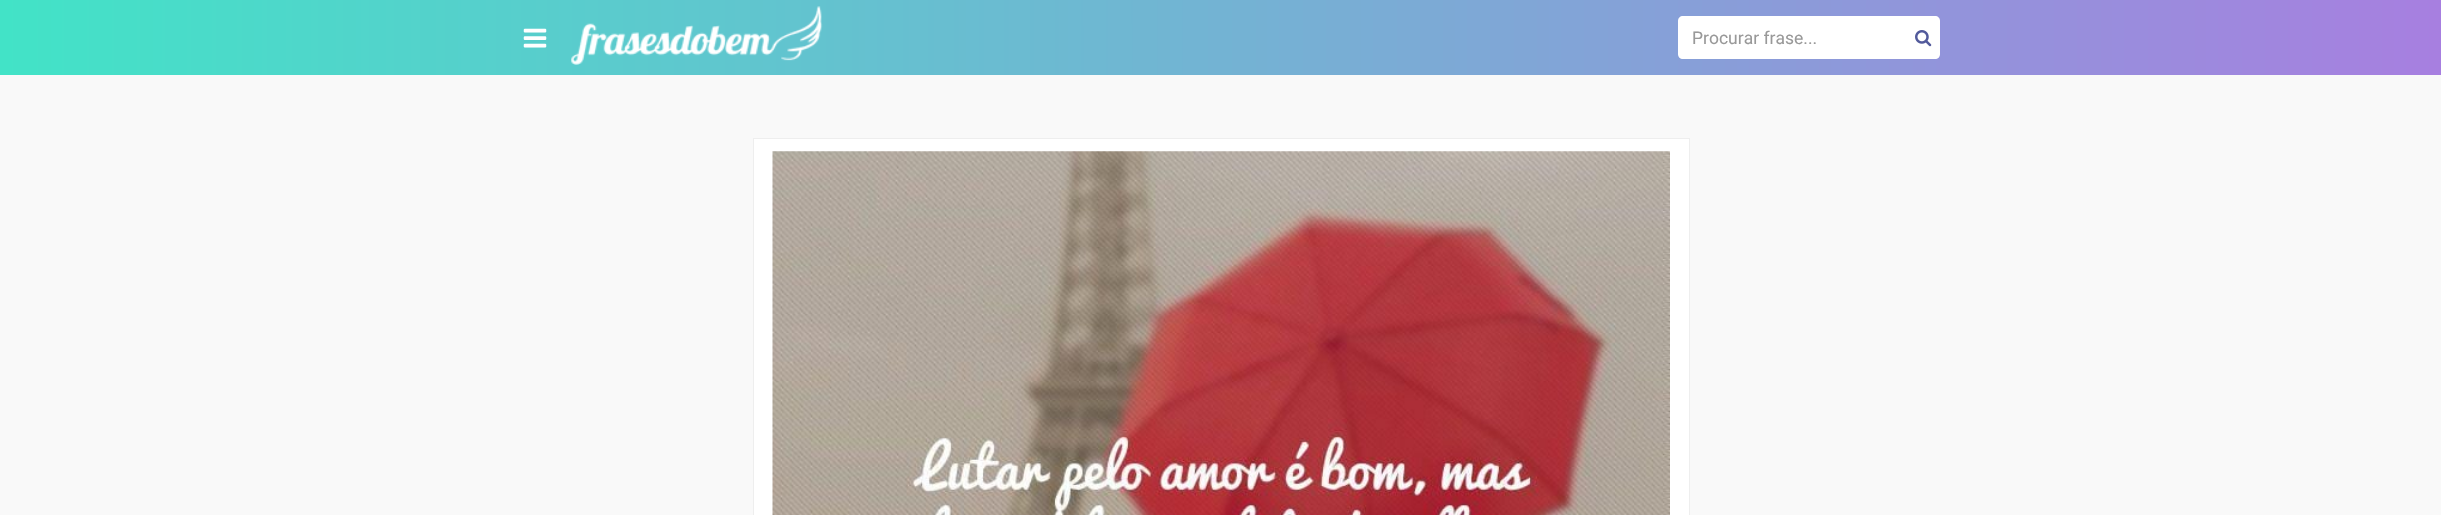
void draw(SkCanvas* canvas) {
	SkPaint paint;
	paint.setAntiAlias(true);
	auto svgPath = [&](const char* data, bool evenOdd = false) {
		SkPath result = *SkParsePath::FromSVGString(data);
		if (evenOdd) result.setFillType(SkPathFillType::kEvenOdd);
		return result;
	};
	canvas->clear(0xfff9f9f9);
	{
		const SkColor colors[] = {0xff42e3c7, 0xff73b3d3, 0xffa77fe0};
		const float stops[] = {0, 0.5, 1};
		const SkPoint ends[] = {{0, 38}, {2441, 37}};
		paint.setShader(SkGradientShader::MakeLinear(ends, colors, stops, 3, SkTileMode::kClamp));
		paint.setAlpha(255);
	}
	canvas->drawRect(SkRect::MakeXYWH(0, 0, 2441, 75), paint);
	canvas->drawImageRect(SkImages::DeferredFromEncodedData(SkData::MakeFromFileName("img1.png")), SkRect::MakeXYWH(523, 28, 24, 20), SkSamplingOptions());
	canvas->drawImageRect(SkImages::DeferredFromEncodedData(SkData::MakeFromFileName("img2.png")), SkRect::MakeXYWH(571, 6, 252, 59), SkSamplingOptions());
	paint.setShader(nullptr);
	paint.setColor(0xffffffff);
	canvas->drawPath(svgPath("M1683 16H1908V59H1683C1680 59 1678 57 1678 54V21C1678 18 1680 16 1683 16Z"), paint);
	SkFont f1(fontMgr->matchFamilyStyle("Roboto", SkFontStyle::Normal()), 17.5);
	f1.setSubpixel(true);
	paint.setColor(0xff999999);
	canvas->drawString("Procurar frase...", 1692, 44, f1, paint);
	paint.setColor(0xffffffff);
	canvas->drawPath(svgPath("M1906 16H1935C1938 16 1940 18 1940 21V54C1940 57 1938 59 1935 59H1906Z"), paint);
	canvas->drawImageRect(SkImages::DeferredFromEncodedData(SkData::MakeFromFileName("img3.png")), SkRect::MakeXYWH(1915, 30, 17, 17), SkSamplingOptions());
	canvas->drawRect(SkRect::MakeXYWH(753.5, 138.5, 936, 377), paint);
	paint.setStroke(true);
	paint.setStrokeWidth(1);
	paint.setColor(0xffeeeeee);
	canvas->drawRect(SkRect::MakeXYWH(753.5, 138.5, 936, 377), paint);
	canvas->drawImageRect(SkImages::DeferredFromEncodedData(SkData::MakeFromFileName("img4.png")), SkRect::MakeXYWH(772, 151, 898, 364), SkSamplingOptions());
}
